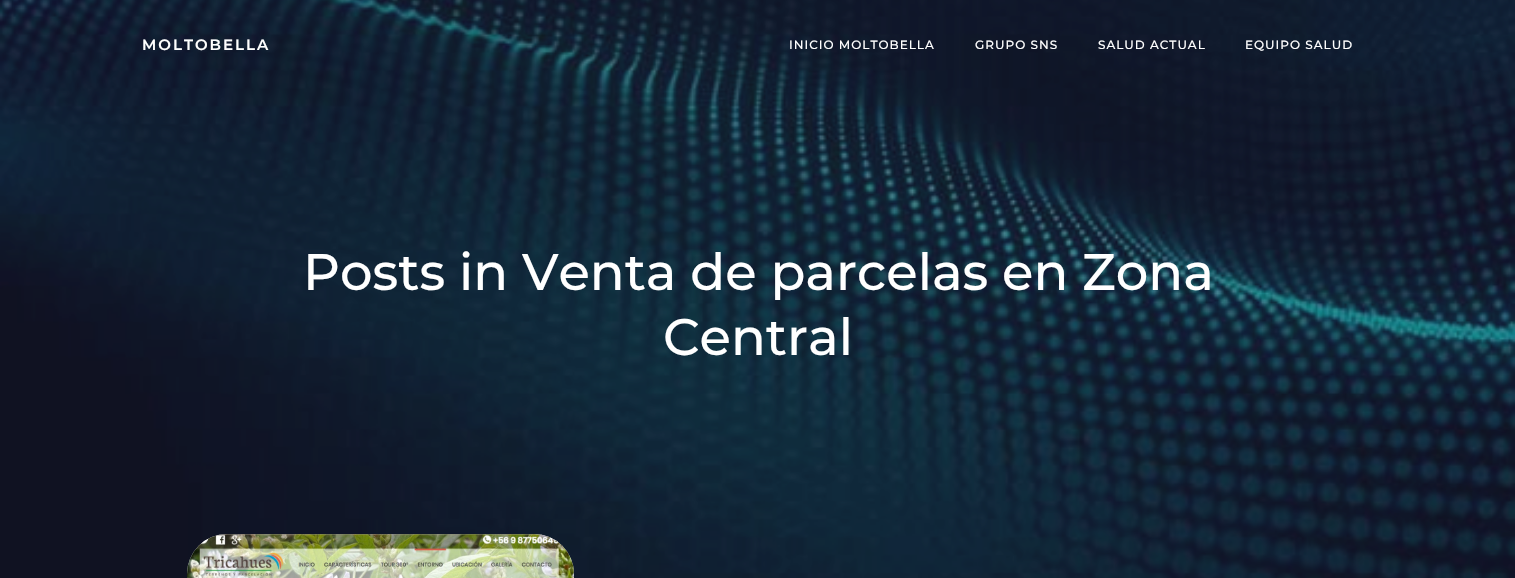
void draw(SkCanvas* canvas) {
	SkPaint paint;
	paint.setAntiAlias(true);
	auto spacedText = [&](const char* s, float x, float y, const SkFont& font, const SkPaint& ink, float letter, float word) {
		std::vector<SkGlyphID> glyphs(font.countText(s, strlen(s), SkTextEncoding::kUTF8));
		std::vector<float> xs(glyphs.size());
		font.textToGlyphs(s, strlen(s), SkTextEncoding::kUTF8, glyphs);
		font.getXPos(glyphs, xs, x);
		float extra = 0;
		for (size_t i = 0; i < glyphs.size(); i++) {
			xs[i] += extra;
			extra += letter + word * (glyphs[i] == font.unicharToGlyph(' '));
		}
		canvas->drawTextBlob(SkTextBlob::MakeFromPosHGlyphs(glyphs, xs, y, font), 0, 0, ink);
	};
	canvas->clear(0xffffffff);
	canvas->drawImageRect(SkImages::DeferredFromEncodedData(SkData::MakeFromFileName("img1.png")), SkRect::MakeXYWH(0, 0, 1515, 578), SkSamplingOptions());
	SkFont f1(fontMgr->matchFamilyStyle("Montserrat", SkFontStyle(600, SkFontStyle::kNormal_Width, SkFontStyle::kUpright_Slant)), 15);
	f1.setSubpixel(true);
	paint.setColor(0xffffffff);
	spacedText("MOLTOBELLA", 142, 50, f1, paint, 2, 0);
	SkFont f2(fontMgr->matchFamilyStyle("Montserrat", SkFontStyle(500, SkFontStyle::kNormal_Width, SkFontStyle::kUpright_Slant)), 12);
	f2.setSubpixel(true);
	spacedText("INICIO MOLTOBELLA", 789, 49, f2, paint, 1, 0);
	spacedText("GRUPO SNS", 975, 49, f2, paint, 1, 0);
	spacedText("SALUD ACTUAL", 1098, 49, f2, paint, 1, 0);
	spacedText("EQUIPO SALUD", 1245, 49, f2, paint, 1, 0);
	SkFont f3(fontMgr->matchFamilyStyle("Montserrat", SkFontStyle(500, SkFontStyle::kNormal_Width, SkFontStyle::kUpright_Slant)), 51.25);
	f3.setSubpixel(true);
	canvas->drawString("Posts in Venta de parcelas en Zona", 303, 290, f3, paint);
	canvas->drawString("Central", 663, 355, f3, paint);
	{
		const SkColor colors[] = {0xffffffff, 0xffefefef};
		const float stops[] = {0.42, 1};
		const SkPoint ends[] = {{181, 538}, {580, 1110}};
		paint.setShader(SkGradientShader::MakeLinear(ends, colors, stops, 2, SkTileMode::kClamp));
		paint.setAlpha(255);
	}
	canvas->drawRoundRect(SkRect::MakeXYWH(187, 534, 387, 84), 40, 40, paint);
	canvas->drawImageRect(SkImages::DeferredFromEncodedData(SkData::MakeFromFileName("img2.png")), SkRect::MakeXYWH(187, 534, 387, 44), SkSamplingOptions());
}
